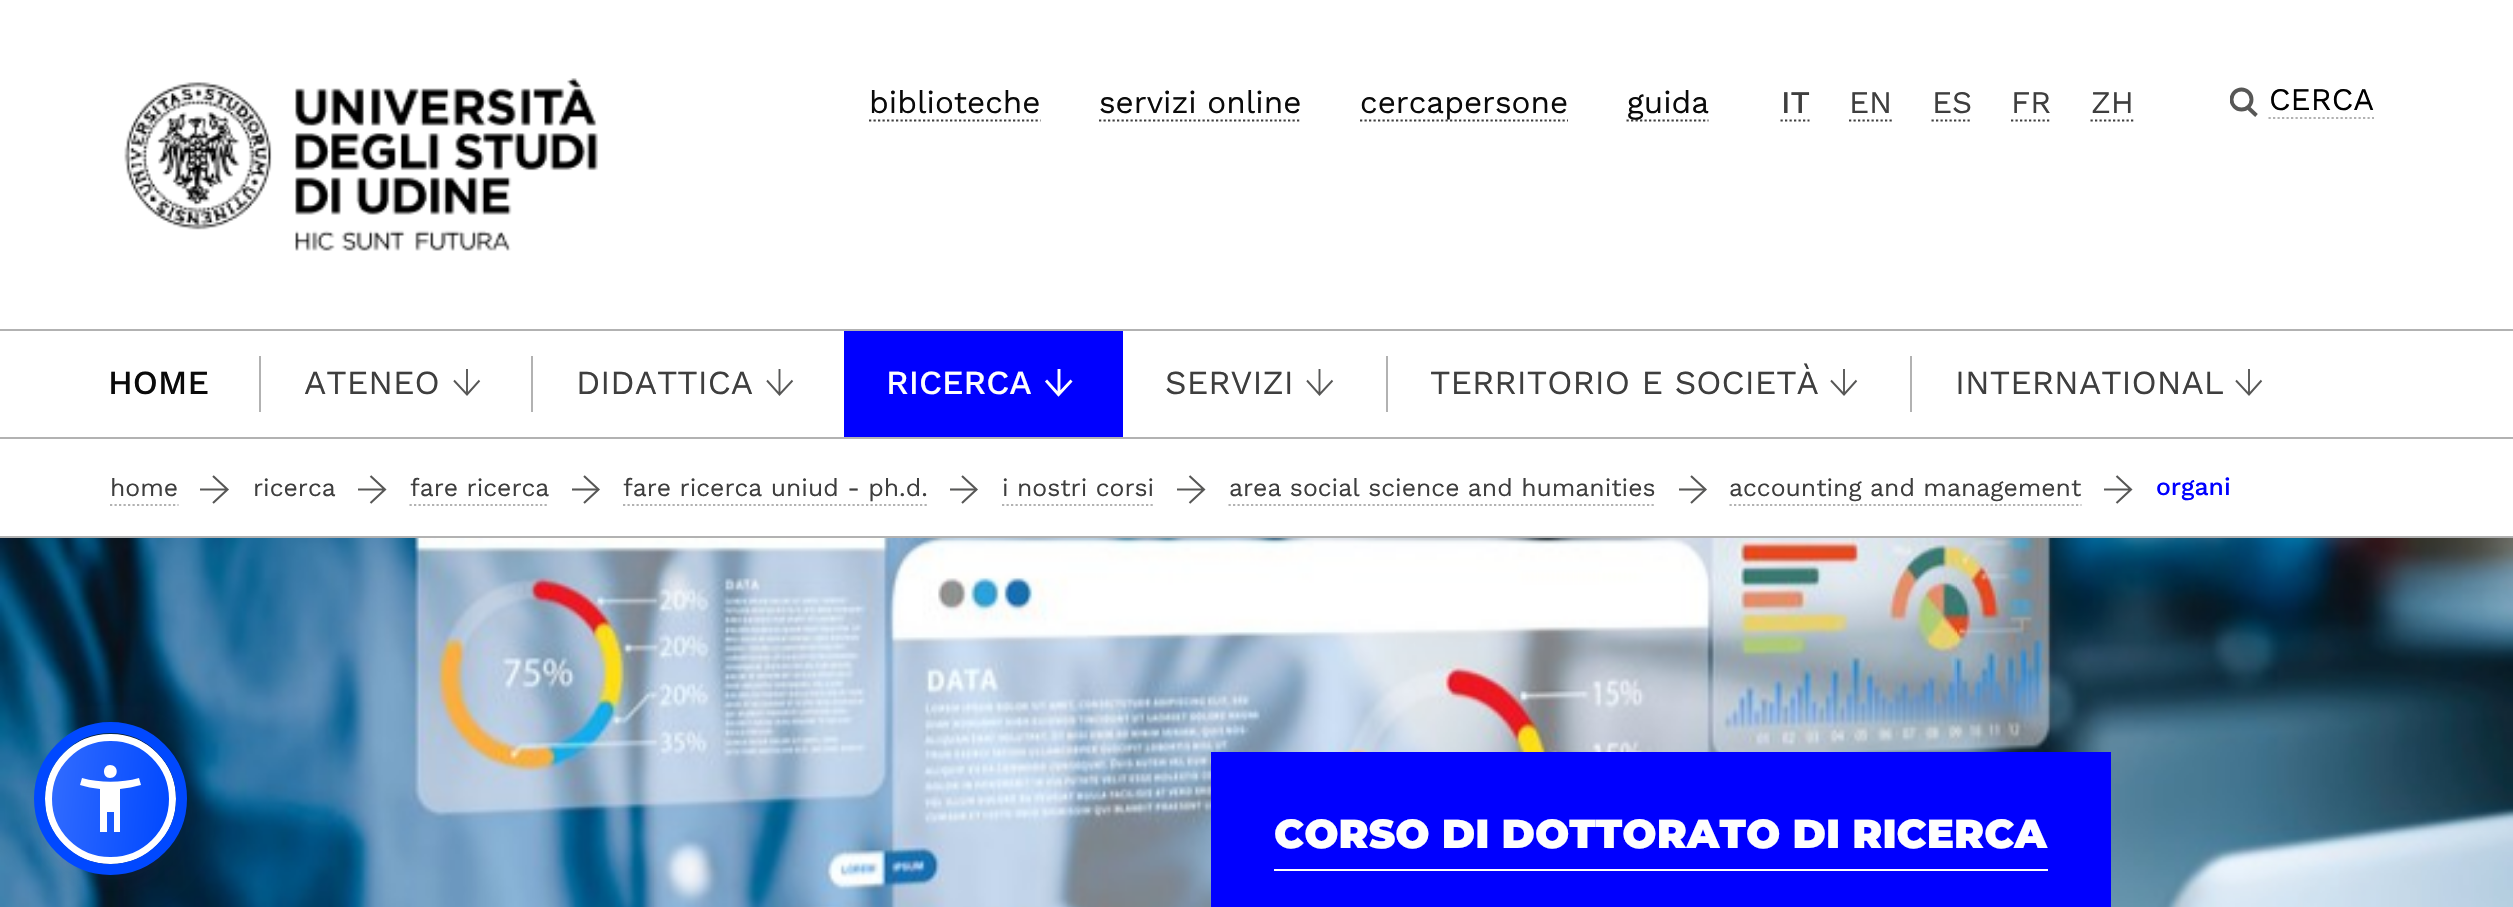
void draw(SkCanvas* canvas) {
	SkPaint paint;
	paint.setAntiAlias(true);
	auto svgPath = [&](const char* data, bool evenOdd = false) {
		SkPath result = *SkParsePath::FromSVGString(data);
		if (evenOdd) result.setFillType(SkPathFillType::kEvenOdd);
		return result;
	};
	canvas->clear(0xffffffff);
	paint.setColor(0xffb2b2b2);
	canvas->drawRect(SkRect::MakeXYWH(0, 329, 2513, 2), paint);
	canvas->drawImageRect(SkImages::DeferredFromEncodedData(SkData::MakeFromFileName("img1.png")), SkRect::MakeXYWH(124, 78, 474, 173), SkSamplingOptions());
	SkFont f1(fontMgr->matchFamilyStyle("Work Sans", SkFontStyle::Normal()), 31.5);
	f1.setSubpixel(true);
	paint.setColor(0xff0a0a0a);
	canvas->drawString("biblioteche", 869, 113, f1, paint);
	paint.setStroke(true);
	paint.setStrokeWidth(2.2);
	paint.setColor(0xff3e3e3e);
	paint.setPathEffect(SkDashPathEffect::Make({{2.25f, 2.25f}}, 0));
	canvas->drawPath(svgPath("M869 120.5H1040.5"), paint);
	paint.setPathEffect(nullptr);
	paint.setStroke(false);
	paint.setColor(0xff0a0a0a);
	canvas->drawString("servizi online", 1099, 113, f1, paint);
	paint.setStroke(true);
	paint.setColor(0xff3e3e3e);
	paint.setPathEffect(SkDashPathEffect::Make({{2.25f, 2.25f}}, 0));
	canvas->drawPath(svgPath("M1099 120.5H1301.5"), paint);
	paint.setPathEffect(nullptr);
	paint.setPathEffect(SkDashPathEffect::Make({{2.25f, 2.25f}}, 0));
	canvas->drawPath(svgPath("M1360 120.5H1568"), paint);
	paint.setPathEffect(nullptr);
	paint.setStroke(false);
	paint.setColor(0xff0a0a0a);
	canvas->drawString("cercapersone", 1360, 113, f1, paint);
	paint.setStroke(true);
	paint.setColor(0xff3e3e3e);
	paint.setPathEffect(SkDashPathEffect::Make({{2.25f, 2.25f}}, 0));
	canvas->drawPath(svgPath("M1626.5 120.5H1708.5"), paint);
	paint.setPathEffect(nullptr);
	paint.setStroke(false);
	paint.setColor(0xff0a0a0a);
	canvas->drawString("guida", 1627, 113, f1, paint);
	SkFont f2(fontMgr->matchFamilyStyle("Work Sans", SkFontStyle(500, SkFontStyle::kNormal_Width, SkFontStyle::kUpright_Slant)), 31.5);
	f2.setSubpixel(true);
	paint.setColor(0xff3e3e3e);
	canvas->drawString("IT", 1781, 113, f2, paint);
	paint.setStroke(true);
	paint.setPathEffect(SkDashPathEffect::Make({{2.25f, 2.25f}}, 0));
	canvas->drawPath(svgPath("M1780.5 120.5H1809.5"), paint);
	paint.setPathEffect(nullptr);
	paint.setStroke(false);
	canvas->drawString("EN", 1849, 113, f1, paint);
	paint.setStroke(true);
	paint.setPathEffect(SkDashPathEffect::Make({{2.25f, 2.25f}}, 0));
	canvas->drawPath(svgPath("M1849 120.5H1892.5"), paint);
	paint.setPathEffect(nullptr);
	paint.setStroke(false);
	canvas->drawString("ES", 1932, 113, f1, paint);
	paint.setStroke(true);
	paint.setPathEffect(SkDashPathEffect::Make({{2.25f, 2.25f}}, 0));
	canvas->drawPath(svgPath("M1931.5 120.5H1972"), paint);
	paint.setPathEffect(nullptr);
	paint.setStroke(false);
	canvas->drawString("FR", 2011, 113, f1, paint);
	paint.setStroke(true);
	paint.setPathEffect(SkDashPathEffect::Make({{2.25f, 2.25f}}, 0));
	canvas->drawPath(svgPath("M2011 120.5H2051.5"), paint);
	paint.setPathEffect(nullptr);
	paint.setStroke(false);
	canvas->drawString("ZH", 2091, 113, f1, paint);
	paint.setStroke(true);
	paint.setPathEffect(SkDashPathEffect::Make({{2.25f, 2.25f}}, 0));
	canvas->drawPath(svgPath("M2090.5 120.5H2133.5"), paint);
	paint.setPathEffect(nullptr);
	canvas->save();
	canvas->clipRect(SkRect::MakeXYWH(2230, 86, 29, 33));
	paint.setStrokeWidth(3.9);
	paint.setColor(0xff575756);
	canvas->drawCircle(2241.5, 99.5, 10, paint);
	canvas->restore();
	canvas->drawPath(svgPath("M2248.5 108L2256.5 115.5"), paint);
	paint.setStroke(false);
	paint.setColor(0xff000000);
	canvas->drawString("CERCA", 2269, 110, f1, paint);
	paint.setStroke(true);
	paint.setStrokeWidth(2.2);
	paint.setColor(0xffb2b2b2);
	paint.setPathEffect(SkDashPathEffect::Make({{2.25f, 2.25f}}, 0));
	canvas->drawPath(svgPath("M2268.5 118H2374"), paint);
	paint.setPathEffect(nullptr);
	SkFont f3(fontMgr->matchFamilyStyle("Work Sans", SkFontStyle(500, SkFontStyle::kNormal_Width, SkFontStyle::kUpright_Slant)), 33.75);
	f3.setSubpixel(true);
	paint.setStroke(false);
	paint.setColor(0xff0a0a0a);
	canvas->drawString("HOME", 108, 394, f3, paint);
	paint.setColor(0xffb2b2b2);
	canvas->drawRect(SkRect::MakeXYWH(259, 356, 2, 56), paint);
	SkFont f4(fontMgr->matchFamilyStyle("Work Sans", SkFontStyle::Normal()), 33.75);
	f4.setSubpixel(true);
	paint.setColor(0xff3e3e3e);
	canvas->drawString("ATENEO", 304, 394, f4, paint);
	paint.setColor(0xff5f5f5e);
	canvas->drawRect(SkRect::MakeXYWH(466, 369, 2, 26), paint);
	paint.setStroke(true);
	paint.setStrokeWidth(1.9);
	paint.setColor(0xff575756);
	canvas->drawPath(svgPath("M479.5 380.5L467 394.5L454 380.5"), paint);
	paint.setStroke(false);
	paint.setColor(0xffb2b2b2);
	canvas->drawRect(SkRect::MakeXYWH(531, 356, 2, 56), paint);
	paint.setColor(0xff3e3e3e);
	canvas->drawString("DIDATTICA", 576, 394, f4, paint);
	paint.setStroke(true);
	paint.setColor(0xff575756);
	canvas->drawPath(svgPath("M779.5 369V394.5M792.5 380.5L779.5 394.5L767 380.5"), paint);
	paint.setStroke(false);
	paint.setColor(0xff0000ff);
	canvas->drawRect(SkRect::MakeXYWH(844, 331, 279, 106), paint);
	paint.setColor(0xfffefefe);
	canvas->drawString("RICERCA", 886, 394, f3, paint);
	paint.setStroke(true);
	paint.setStrokeWidth(2.9);
	paint.setColor(0xffffffff);
	canvas->drawPath(svgPath("M1059 369V394.5M1071.5 380.5L1058.5 394.5L1046 380.5"), paint);
	paint.setStroke(false);
	paint.setColor(0xff3e3e3e);
	canvas->drawString("SERVIZI", 1165, 394, f4, paint);
	paint.setStroke(true);
	paint.setStrokeWidth(1.9);
	paint.setColor(0xff575756);
	canvas->drawPath(svgPath("M1319.5 369V394.5M1332.5 380.5L1319.5 394.5L1307 380.5"), paint);
	paint.setStroke(false);
	paint.setColor(0xffb2b2b2);
	canvas->drawRect(SkRect::MakeXYWH(1386, 356, 2, 56), paint);
	paint.setColor(0xff3e3e3e);
	canvas->drawString("TERRITORIO E SOCIETÀ", 1430, 394, f4, paint);
	paint.setColor(0xff5f5f5e);
	canvas->drawRect(SkRect::MakeXYWH(1843, 369, 2, 26), paint);
	paint.setStroke(true);
	paint.setColor(0xff575756);
	canvas->drawPath(svgPath("M1856.5 380.5L1844 394.5L1831 380.5"), paint);
	paint.setStroke(false);
	paint.setColor(0xffb2b2b2);
	canvas->drawRect(SkRect::MakeXYWH(1910, 356, 2, 56), paint);
	paint.setColor(0xff3e3e3e);
	canvas->drawString("INTERNATIONAL", 1955, 394, f4, paint);
	paint.setColor(0xff5f5f5e);
	canvas->drawRect(SkRect::MakeXYWH(2248, 369, 2, 26), paint);
	paint.setStroke(true);
	paint.setColor(0xff575756);
	canvas->drawPath(svgPath("M2261.5 380.5L2249 394.5L2236 380.5"), paint);
	paint.setStroke(false);
	paint.setColor(0xffb2b2b2);
	canvas->drawRect(SkRect::MakeXYWH(0, 437, 2513, 2), paint);
	canvas->drawRect(SkRect::MakeXYWH(0, 536, 2513, 2), paint);
	SkFont f5(fontMgr->matchFamilyStyle("Work Sans", SkFontStyle::Normal()), 24.75);
	f5.setSubpixel(true);
	paint.setColor(0xff3e3e3e);
	canvas->drawString("home", 110, 496, f5, paint);
	paint.setStroke(true);
	paint.setStrokeWidth(2.2);
	paint.setColor(0xffb2b2b2);
	paint.setPathEffect(SkDashPathEffect::Make({{2.25f, 2.25f}}, 0));
	canvas->drawPath(svgPath("M110 505H178.5"), paint);
	paint.setPathEffect(nullptr);
	paint.setStrokeWidth(2.1);
	paint.setColor(0xff575756);
	canvas->drawPath(svgPath("M200 489.5H227.5M213 476L227.5 489.5L213 503"), paint);
	paint.setStroke(false);
	paint.setColor(0xff3e3e3e);
	canvas->drawString("ricerca", 253, 496, f5, paint);
	paint.setStroke(true);
	paint.setColor(0xff575756);
	canvas->drawPath(svgPath("M358 489.5H385M370.5 476L385 489.5L370.5 503"), paint);
	paint.setStroke(false);
	paint.setColor(0xff3e3e3e);
	canvas->drawString("fare ricerca", 410, 496, f5, paint);
	paint.setStroke(true);
	paint.setStrokeWidth(2.2);
	paint.setColor(0xffb2b2b2);
	paint.setPathEffect(SkDashPathEffect::Make({{2.25f, 2.25f}}, 0));
	canvas->drawPath(svgPath("M409.5 505H549"), paint);
	paint.setPathEffect(nullptr);
	canvas->save();
	canvas->clipRect(SkRect::MakeXYWH(572, 473, 29, 33));
	paint.setStrokeWidth(2.1);
	paint.setColor(0xff575756);
	canvas->drawPath(svgPath("M571.5 489.5H598.5"), paint);
	canvas->restore();
	canvas->drawPath(svgPath("M584 476L598.5 489.5L584 503"), paint);
	paint.setStroke(false);
	paint.setColor(0xff3e3e3e);
	canvas->drawString("fare ricerca uniud - ph.d.", 623, 496, f5, paint);
	paint.setStroke(true);
	paint.setStrokeWidth(2.2);
	paint.setColor(0xffb2b2b2);
	paint.setPathEffect(SkDashPathEffect::Make({{2.25f, 2.25f}}, 0));
	canvas->drawPath(svgPath("M623 505H928"), paint);
	paint.setPathEffect(nullptr);
	canvas->save();
	canvas->clipRect(SkRect::MakeXYWH(950, 473, 29, 33));
	paint.setStrokeWidth(2.1);
	paint.setColor(0xff575756);
	canvas->drawPath(svgPath("M949.5 489.5H976.5"), paint);
	canvas->restore();
	canvas->drawPath(svgPath("M962 476L976.5 489.5L962 503"), paint);
	paint.setStroke(false);
	paint.setColor(0xff3e3e3e);
	canvas->drawString("i nostri corsi", 1002, 496, f5, paint);
	paint.setStroke(true);
	paint.setStrokeWidth(2.2);
	paint.setColor(0xffb2b2b2);
	paint.setPathEffect(SkDashPathEffect::Make({{2.25f, 2.25f}}, 0));
	canvas->drawPath(svgPath("M1002 505H1154.5"), paint);
	paint.setPathEffect(nullptr);
	paint.setStrokeWidth(2.1);
	paint.setColor(0xff575756);
	canvas->drawPath(svgPath("M1177 489.5H1204M1189.5 476L1204 489.5L1189.5 503"), paint);
	paint.setStroke(false);
	paint.setColor(0xff3e3e3e);
	canvas->drawString("area social science and humanities", 1229, 496, f5, paint);
	paint.setStroke(true);
	paint.setStrokeWidth(2.2);
	paint.setColor(0xffb2b2b2);
	paint.setPathEffect(SkDashPathEffect::Make({{2.25f, 2.25f}}, 0));
	canvas->drawPath(svgPath("M1228.5 505H1655"), paint);
	paint.setPathEffect(nullptr);
	canvas->save();
	canvas->clipRect(SkRect::MakeXYWH(1679, 473, 29, 33));
	paint.setStrokeWidth(2.1);
	paint.setColor(0xff575756);
	canvas->drawPath(svgPath("M1678.5 489.5H1705.5"), paint);
	canvas->restore();
	canvas->drawPath(svgPath("M1691 476L1705.5 489.5L1691 503"), paint);
	paint.setStroke(false);
	paint.setColor(0xff3e3e3e);
	canvas->drawString("accounting and management", 1729, 496, f5, paint);
	paint.setStroke(true);
	paint.setStrokeWidth(2.2);
	paint.setColor(0xffb2b2b2);
	paint.setPathEffect(SkDashPathEffect::Make({{2.25f, 2.25f}}, 0));
	canvas->drawPath(svgPath("M1729.5 505H2081.5"), paint);
	paint.setPathEffect(nullptr);
	paint.setStrokeWidth(2.1);
	paint.setColor(0xff575756);
	canvas->drawPath(svgPath("M2104 489.5H2131M2116.5 476L2131 489.5L2116.5 503"), paint);
	SkFont f6(fontMgr->matchFamilyStyle("Work Sans", SkFontStyle(500, SkFontStyle::kNormal_Width, SkFontStyle::kUpright_Slant)), 24.75);
	f6.setSubpixel(true);
	paint.setStroke(false);
	paint.setColor(0xff0000ff);
	canvas->drawString("organi", 2156, 495, f6, paint);
	canvas->drawImageRect(SkImages::DeferredFromEncodedData(SkData::MakeFromFileName("img2.png")), SkRect::MakeXYWH(0, 538, 2513, 369), SkSamplingOptions());
	canvas->drawRect(SkRect::MakeXYWH(1211, 752, 900, 155), paint);
	paint.setColor(0xfffefefe);
	canvas->drawRect(SkRect::MakeXYWH(1274, 869, 774, 2), paint);
	SkFont f7(fontMgr->matchFamilyStyle("Montserrat", SkFontStyle(900, SkFontStyle::kNormal_Width, SkFontStyle::kUpright_Slant)), 40.5);
	f7.setSubpixel(true);
	canvas->drawString("CORSO DI DOTTORATO DI RICERCA", 1274, 848, f7, paint);
	paint.setColor(0x335d6494);
	paint.setMaskFilter(SkMaskFilter::MakeBlur(kNormal_SkBlurStyle, 4.5));
	canvas->drawRoundRect(SkRect::MakeXYWH(45, 738, 131, 131), 65.5, 65.5, paint);
	paint.setMaskFilter(nullptr);
	paint.setColor(0x26252c61);
	paint.setMaskFilter(SkMaskFilter::MakeBlur(kNormal_SkBlurStyle, 17));
	canvas->drawRoundRect(SkRect::MakeXYWH(45, 745, 131, 130), 65, 65, paint);
	paint.setMaskFilter(nullptr);
	canvas->save();
	canvas->clipPath(svgPath("M110 734H111C147 734 176 763 176 799C176 835 147 864 111 864H110C74 864 45 835 45 799C45 763 74 734 110 734Z"), true);
	{
		const SkColor colors[] = {0xff326cff, 0xff0048ff};
		const float stops[] = {0, 1};
		const SkPoint ends[] = {{46, 792}, {174, 805}};
		paint.setShader(SkGradientShader::MakeLinear(ends, colors, stops, 2, SkTileMode::kClamp));
		paint.setAlpha(255);
	}
	canvas->drawRect(SkRect::MakeXYWH(52, 740, 117, 117), paint);
	canvas->restore();
	paint.setStroke(true);
	paint.setStrokeWidth(7);
	paint.setShader(nullptr);
	paint.setColor(0xffffffff);
	canvas->drawRoundRect(SkRect::MakeXYWH(48.5, 737.5, 124, 123), 61.5, 61.5, paint);
	paint.setStrokeWidth(11);
	paint.setColor(0xff0048ff);
	canvas->drawCircle(110.5, 798.5, 71, paint);
	paint.setStroke(false);
	paint.setColor(0xffffffff);
	canvas->drawPath(svgPath("M139 778C121 783 100 783 82 778L80 785C86 787 93 788 100 789V832H107V812H114V832H120V789C127 788 134 787 141 785ZM110 778C119 778 119 765 110 765C102 765 102 778 110 778Z"), paint);
}
